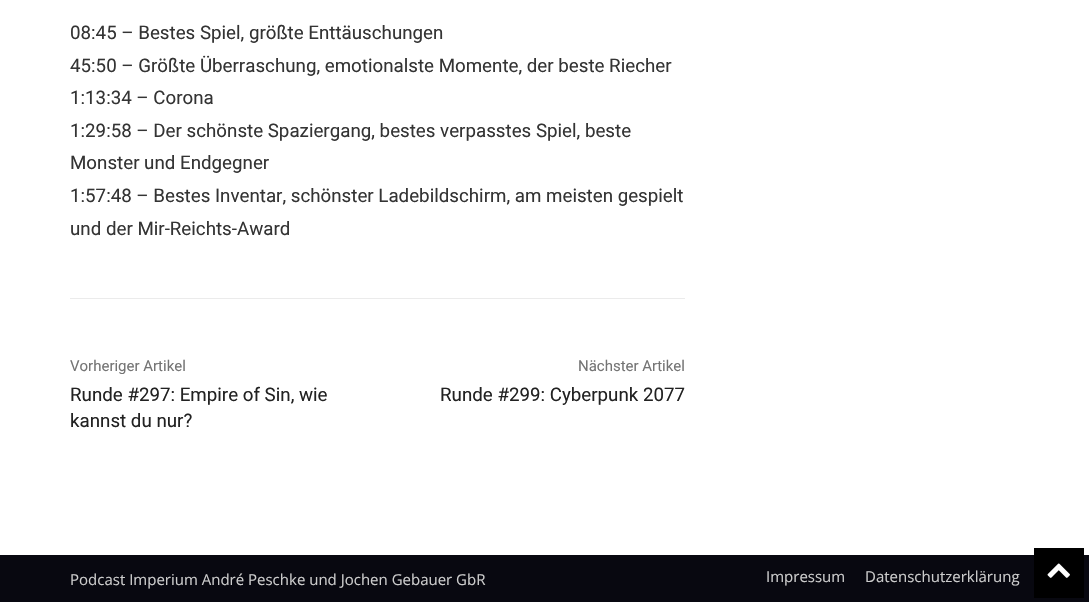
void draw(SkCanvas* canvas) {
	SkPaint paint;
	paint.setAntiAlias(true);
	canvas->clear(0xffffffff);
	SkFont f1(fontMgr->matchFamilyStyle("Roboto", SkFontStyle::Normal()), 18.75);
	f1.setSubpixel(true);
	paint.setColor(0xff343434);
	canvas->drawString("08:45 – Bestes Spiel, größte Enttäuschungen", 70, 39, f1, paint);
	canvas->drawString("45:50 – Größte Überraschung, emotionalste Momente, der beste Riecher", 70, 72, f1, paint);
	canvas->drawString("1:13:34 – Corona", 70, 104, f1, paint);
	canvas->drawString("1:29:58 – Der schönste Spaziergang, bestes verpasstes Spiel, beste", 70, 137, f1, paint);
	canvas->drawString("Monster und Endgegner", 70, 169, f1, paint);
	canvas->drawString("1:57:48 – Bestes Inventar, schönster Ladebildschirm, am meisten gespielt", 70, 202, f1, paint);
	canvas->drawString("und der Mir-Reichts-Award", 70, 235, f1, paint);
	paint.setColor(0xffebebeb);
	canvas->drawRect(SkRect::MakeXYWH(70, 298, 615, 1), paint);
	SkFont f2(fontMgr->matchFamilyStyle("Roboto", SkFontStyle::Normal()), 15);
	f2.setSubpixel(true);
	paint.setColor(0xff747474);
	canvas->drawString("Vorheriger Artikel", 70, 371, f2, paint);
	paint.setColor(0xff222222);
	canvas->drawString("Runde #297: Empire of Sin, wie", 70, 401, f1, paint);
	canvas->drawString("kannst du nur?", 70, 427, f1, paint);
	paint.setColor(0xff747474);
	canvas->drawString("Nächster Artikel", 578, 371, f2, paint);
	paint.setColor(0xff222222);
	canvas->drawString("Runde #299: Cyberpunk 2077", 440, 401, f1, paint);
	paint.setColor(0xff080810);
	canvas->drawRect(SkRect::MakeXYWH(0, 555, 1089, 47), paint);
	SkFont f3(fontMgr->matchFamilyStyle("Open Sans", SkFontStyle::Normal()), 15);
	f3.setSubpixel(true);
	paint.setColor(0xffcccccc);
	canvas->drawString("Podcast Imperium André Peschke und Jochen Gebauer GbR", 70, 585, f3, paint);
	canvas->drawString("Impressum", 766, 582, f3, paint);
	canvas->drawString("Datenschutzerklärung", 865, 582, f3, paint);
	paint.setColor(0xff000000);
	canvas->drawRect(SkRect::MakeXYWH(1034, 548, 50, 50), paint);
	canvas->drawImageRect(SkImages::DeferredFromEncodedData(SkData::MakeFromFileName("img1.png")), SkRect::MakeXYWH(1047, 563, 23, 15), SkSamplingOptions());
}
